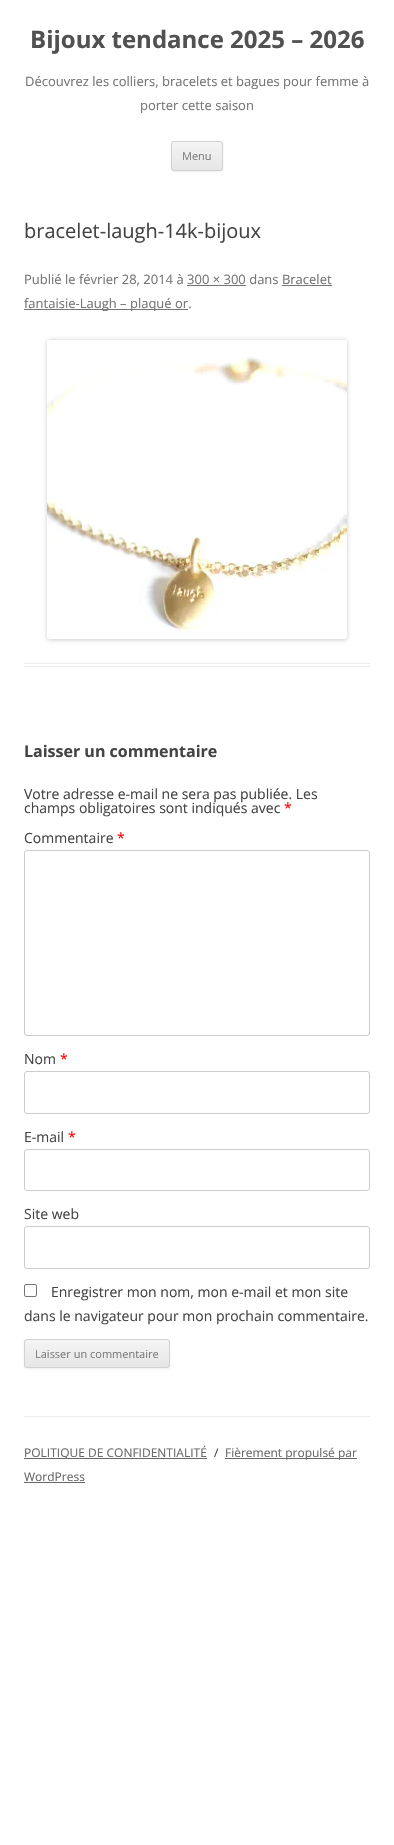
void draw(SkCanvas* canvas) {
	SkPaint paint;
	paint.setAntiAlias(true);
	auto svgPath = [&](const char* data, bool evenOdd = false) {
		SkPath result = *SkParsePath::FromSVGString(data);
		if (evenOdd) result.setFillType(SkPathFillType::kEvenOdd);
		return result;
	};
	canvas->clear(0xffffffff);
	SkFont f1(fontMgr->matchFamilyStyle("Open Sans", SkFontStyle::Bold()), 24);
	f1.setSubpixel(true);
	paint.setColor(0xff515151);
	canvas->drawString("Bijoux tendance 2025 – 2026", 30, 48, f1, paint);
	SkFont f2(fontMgr->matchFamilyStyle("Open Sans", SkFontStyle::Normal()), 13);
	f2.setSubpixel(true);
	paint.setColor(0xff757575);
	canvas->drawString("Découvrez les colliers, bracelets et bagues pour femme à", 25, 86, f2, paint);
	canvas->drawString("porter cette saison", 140, 110, f2, paint);
	paint.setColor(0x1a404040);
	paint.setMaskFilter(SkMaskFilter::MakeBlur(kNormal_SkBlurStyle, 1));
	canvas->drawRoundRect(SkRect::MakeXYWH(171, 142, 52, 30), 3, 3, paint);
	paint.setMaskFilter(nullptr);
	canvas->save();
	canvas->clipPath(svgPath("M174 141H220C221.5 141 223 142.5 223 144V168C223 169.5 221.5 171 220 171H174C172.5 171 171 169.5 171 168V144C171 142.5 172.5 141 174 141Z"), true);
	{
		const SkColor colors[] = {0xfff4f4f4, 0xffe6e6e6};
		const float stops[] = {0, 1};
		const SkPoint ends[] = {{197, 142}, {197, 170}};
		paint.setShader(SkGradientShader::MakeLinear(ends, colors, stops, 2, SkTileMode::kClamp));
		paint.setAlpha(255);
	}
	canvas->drawRect(SkRect::MakeXYWH(171, 142, 52, 28), paint);
	canvas->restore();
	paint.setStroke(true);
	paint.setStrokeWidth(1);
	paint.setShader(nullptr);
	paint.setColor(0xffd2d2d2);
	canvas->drawRoundRect(SkRect::MakeXYWH(171.5, 141.5, 51, 29), 2.5, 2.5, paint);
	SkFont f3(fontMgr->matchFamilyStyle("Open Sans", SkFontStyle::Normal()), 11);
	f3.setSubpixel(true);
	paint.setStroke(false);
	paint.setColor(0xff7c7c7c);
	canvas->drawString("Menu", 182, 160, f3, paint);
	paint.setColor(0xffededed);
	canvas->drawRect(SkRect::MakeXYWH(24, 663, 346, 1), paint);
	canvas->drawRect(SkRect::MakeXYWH(24, 666, 346, 1), paint);
	SkFont f4(fontMgr->matchFamilyStyle("Open Sans", SkFontStyle::Normal()), 20);
	f4.setSubpixel(true);
	paint.setColor(0xff444444);
	canvas->drawString("bracelet-laugh-14k-bijoux", 24, 238, f4, paint);
	paint.setColor(0xff757575);
	canvas->drawString("Publié le février 28, 2014 à 300 × 300 dans Bracelet", 24, 284, f2, paint);
	canvas->drawRect(SkRect::MakeXYWH(187, 285, 59, 1), paint);
	canvas->drawRect(SkRect::MakeXYWH(24, 309, 164, 1), paint);
	canvas->drawString("fantaisie-Laugh – plaqué or.", 24, 308, f2, paint);
	canvas->drawRect(SkRect::MakeXYWH(282, 285, 50, 1), paint);
	paint.setColor(0x33000000);
	paint.setMaskFilter(SkMaskFilter::MakeBlur(kNormal_SkBlurStyle, 2));
	canvas->drawRoundRect(SkRect::MakeXYWH(47, 340, 300, 300), 3, 3, paint);
	paint.setMaskFilter(nullptr);
	canvas->drawImageRect(SkImages::DeferredFromEncodedData(SkData::MakeFromFileName("img1.png")), SkRect::MakeXYWH(47, 340, 300, 299), SkSamplingOptions());
	SkFont f5(fontMgr->matchFamilyStyle("Open Sans", SkFontStyle::Bold()), 16);
	f5.setSubpixel(true);
	paint.setColor(0xff444444);
	canvas->drawString("Laisser un commentaire", 24, 757, f5, paint);
	SkFont f6(fontMgr->matchFamilyStyle("Open Sans", SkFontStyle::Normal()), 14);
	f6.setSubpixel(true);
	canvas->drawString("Votre adresse e-mail ne sera pas publiée. Les", 24, 799, f6, paint);
	canvas->drawString("champs obligatoires sont indiqués avec", 24, 813, f6, paint);
	paint.setColor(0xffff0000);
	canvas->drawString("*", 284, 813, f6, paint);
	paint.setColor(0xff444444);
	canvas->drawString("Commentaire", 24, 843, f6, paint);
	paint.setColor(0xffff0000);
	canvas->drawString("*", 117, 843, f6, paint);
	paint.setStroke(true);
	paint.setColor(0xffcccccc);
	canvas->drawRoundRect(SkRect::MakeXYWH(24.5, 850.5, 345, 185), 2.5, 2.5, paint);
	paint.setStroke(false);
	paint.setColor(0xff444444);
	canvas->drawString("Nom", 24, 1064, f6, paint);
	paint.setColor(0xffff0000);
	canvas->drawString("*", 60, 1064, f6, paint);
	paint.setStroke(true);
	paint.setColor(0xffcccccc);
	canvas->drawRoundRect(SkRect::MakeXYWH(24.5, 1071.5, 345, 42), 2.5, 2.5, paint);
	paint.setStroke(false);
	paint.setColor(0xff444444);
	canvas->drawString("E-mail", 24, 1142, f6, paint);
	paint.setColor(0xffff0000);
	canvas->drawString("*", 68, 1142, f6, paint);
	paint.setStroke(true);
	paint.setColor(0xffcccccc);
	canvas->drawRoundRect(SkRect::MakeXYWH(24.5, 1149.5, 345, 41), 2.5, 2.5, paint);
	paint.setStroke(false);
	paint.setColor(0xff444444);
	canvas->drawString("Site web", 24, 1219, f6, paint);
	paint.setStroke(true);
	paint.setColor(0xffcccccc);
	canvas->drawRoundRect(SkRect::MakeXYWH(24.5, 1226.5, 345, 42), 2.5, 2.5, paint);
	paint.setColor(0xff767676);
	canvas->drawRoundRect(SkRect::MakeXYWH(24.5, 1284.5, 12, 12), 1.5, 1.5, paint);
	paint.setStroke(false);
	paint.setColor(0xff444444);
	canvas->drawString("Enregistrer mon nom, mon e-mail et mon site", 51, 1297, f6, paint);
	canvas->drawString("dans le navigateur pour mon prochain commentaire.", 24, 1321, f6, paint);
	paint.setColor(0x1a404040);
	paint.setMaskFilter(SkMaskFilter::MakeBlur(kNormal_SkBlurStyle, 1));
	canvas->drawRoundRect(SkRect::MakeXYWH(24, 1340, 146, 29), 3, 3, paint);
	paint.setMaskFilter(nullptr);
	canvas->save();
	canvas->clipPath(svgPath("M27 1339H167C168.5 1339 170 1340.5 170 1342V1365C170 1366.5 168.5 1368 167 1368H27C25.5 1368 24 1366.5 24 1365V1342C24 1340.5 25.5 1339 27 1339Z"), true);
	{
		const SkColor colors[] = {0xfff4f4f4, 0xffe6e6e6};
		const float stops[] = {0, 1};
		const SkPoint ends[] = {{97, 1340}, {97, 1367}};
		paint.setShader(SkGradientShader::MakeLinear(ends, colors, stops, 2, SkTileMode::kClamp));
		paint.setAlpha(255);
	}
	canvas->drawRect(SkRect::MakeXYWH(24, 1340, 146, 27), paint);
	canvas->restore();
	paint.setStroke(true);
	paint.setShader(nullptr);
	paint.setColor(0xffd2d2d2);
	canvas->drawRoundRect(SkRect::MakeXYWH(24.5, 1339.5, 145, 28), 2.5, 2.5, paint);
	paint.setStroke(false);
	paint.setColor(0xff7c7c7c);
	canvas->drawString("Laisser un commentaire", 35, 1358, f3, paint);
	paint.setColor(0xffededed);
	canvas->drawRect(SkRect::MakeXYWH(24, 1416, 346, 1), paint);
	paint.setColor(0xff686868);
	canvas->drawRect(SkRect::MakeXYWH(24, 1458, 183, 1), paint);
	SkFont f7(fontMgr->matchFamilyStyle("Open Sans", SkFontStyle::Normal()), 12);
	f7.setSubpixel(true);
	canvas->drawString("POLITIQUE DE CONFIDENTIALITÉ", 24, 1457, f7, paint);
	paint.setColor(0xff444444);
	canvas->drawString("/", 214, 1457, f7, paint);
	paint.setColor(0xff686868);
	canvas->drawRect(SkRect::MakeXYWH(225, 1458, 132, 1), paint);
	canvas->drawString("Fièrement propulsé par", 225, 1457, f7, paint);
	canvas->drawString("WordPress", 24, 1481, f7, paint);
	canvas->drawRect(SkRect::MakeXYWH(24, 1482, 61, 1), paint);
}
